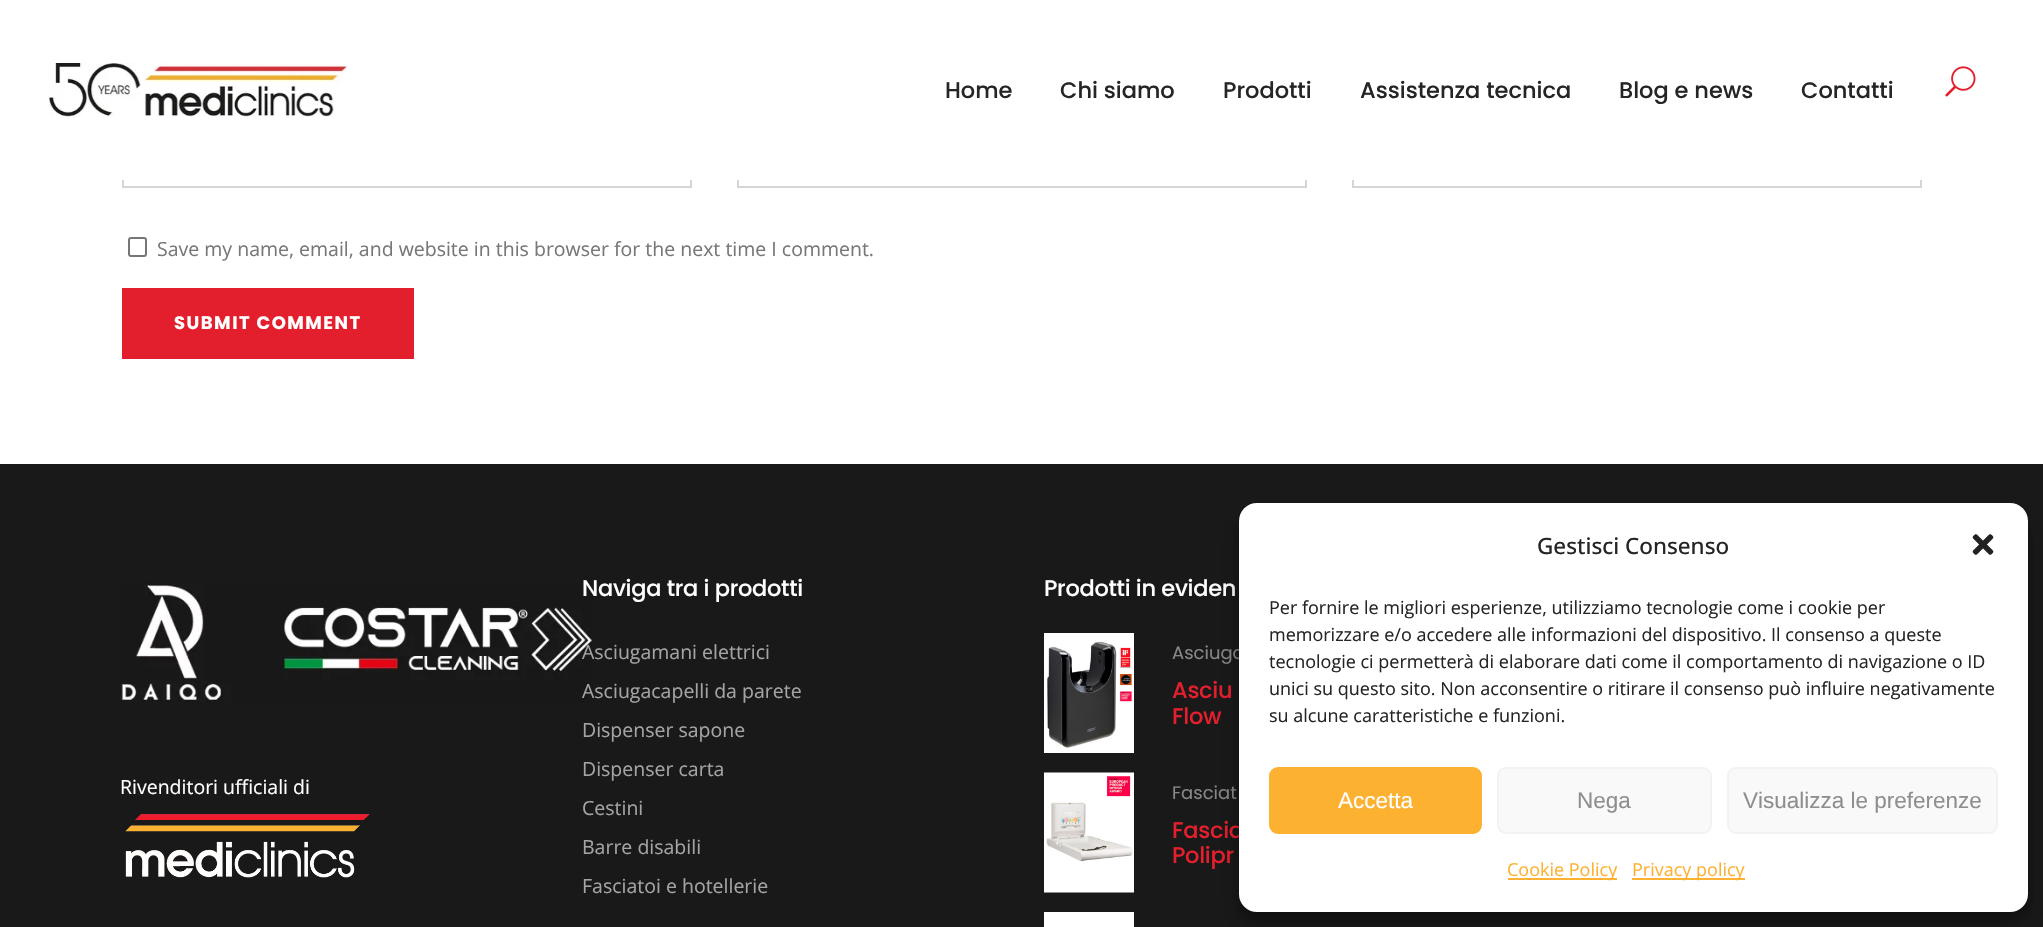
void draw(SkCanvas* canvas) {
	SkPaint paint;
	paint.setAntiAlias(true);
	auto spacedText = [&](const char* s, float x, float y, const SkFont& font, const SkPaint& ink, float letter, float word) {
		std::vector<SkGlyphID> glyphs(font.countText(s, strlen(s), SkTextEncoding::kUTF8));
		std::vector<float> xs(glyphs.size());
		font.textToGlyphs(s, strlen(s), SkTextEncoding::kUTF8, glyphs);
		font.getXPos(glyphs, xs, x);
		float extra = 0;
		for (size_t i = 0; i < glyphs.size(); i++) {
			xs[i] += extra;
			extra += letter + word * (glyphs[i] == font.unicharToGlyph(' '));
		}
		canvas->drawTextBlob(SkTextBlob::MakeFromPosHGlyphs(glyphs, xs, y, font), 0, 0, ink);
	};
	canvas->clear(0xffffffff);
	paint.setStroke(true);
	paint.setStrokeWidth(2);
	paint.setColor(0xffd5d5d5);
	canvas->drawRect(SkRect::MakeXYWH(123, 118, 568, 69), paint);
	canvas->drawRect(SkRect::MakeXYWH(738, 118, 568, 69), paint);
	canvas->drawRect(SkRect::MakeXYWH(1353, 118, 568, 69), paint);
	paint.setStroke(false);
	paint.setColor(0xffffffff);
	canvas->drawRect(SkRect::MakeXYWH(122, 117, 1800, 63), paint);
	canvas->drawImageRect(SkImages::DeferredFromEncodedData(SkData::MakeFromFileName("img1.png")), SkRect::MakeXYWH(49, 63, 298, 54), SkSamplingOptions());
	SkFont f1(fontMgr->matchFamilyStyle("Poppins", SkFontStyle(500, SkFontStyle::kNormal_Width, SkFontStyle::kUpright_Slant)), 22.5);
	f1.setSubpixel(true);
	paint.setColor(0xff252525);
	canvas->drawString("Home", 945, 98, f1, paint);
	canvas->drawString("Chi siamo", 1060, 98, f1, paint);
	canvas->drawString("Prodotti", 1223, 98, f1, paint);
	canvas->drawString("Assistenza tecnica", 1360, 98, f1, paint);
	canvas->drawString("Blog e news", 1619, 98, f1, paint);
	canvas->drawString("Contatti", 1801, 98, f1, paint);
	canvas->drawImageRect(SkImages::DeferredFromEncodedData(SkData::MakeFromFileName("img2.png")), SkRect::MakeXYWH(1945, 66, 31, 31), SkSamplingOptions());
	paint.setStroke(true);
	paint.setColor(0xff767676);
	canvas->drawRoundRect(SkRect::MakeXYWH(129, 238, 17, 18), 2, 2, paint);
	SkFont f2(fontMgr->matchFamilyStyle("Open Sans", SkFontStyle::Normal()), 19.5);
	f2.setSubpixel(true);
	paint.setStroke(false);
	paint.setColor(0xff777777);
	canvas->drawString("Save my name, email, and website in this browser for the next time I comment.", 157, 256, f2, paint);
	paint.setColor(0xffe41f2d);
	canvas->drawRect(SkRect::MakeXYWH(122, 288, 292, 71), paint);
	SkFont f3(fontMgr->matchFamilyStyle("Poppins", SkFontStyle::Bold()), 18);
	f3.setSubpixel(true);
	paint.setColor(0xffffffff);
	spacedText("SUBMIT COMMENT", 174, 329, f3, paint, 1.5, 0);
	paint.setColor(0xff191919);
	canvas->drawRect(SkRect::MakeXYWH(0, 464, 2043, 463), paint);
	canvas->drawImageRect(SkImages::DeferredFromEncodedData(SkData::MakeFromFileName("img3.png")), SkRect::MakeXYWH(120, 583, 473, 119), SkSamplingOptions());
	paint.setColor(0xffffffff);
	canvas->drawString("Rivenditori ufficiali di", 120, 794, f2, paint);
	canvas->drawImageRect(SkImages::DeferredFromEncodedData(SkData::MakeFromFileName("img4.png")), SkRect::MakeXYWH(125, 814, 245, 64), SkSamplingOptions());
	spacedText("Naviga tra i prodotti", 582, 596, f1, paint, -0.3, 0);
	paint.setColor(0xffa4a4a4);
	canvas->drawString("Asciugamani elettrici", 582, 659, f2, paint);
	canvas->drawString("Asciugacapelli da parete", 582, 698, f2, paint);
	canvas->drawString("Dispenser sapone", 582, 737, f2, paint);
	canvas->drawString("Dispenser carta", 582, 776, f2, paint);
	canvas->drawString("Cestini", 582, 815, f2, paint);
	canvas->drawString("Barre disabili", 582, 854, f2, paint);
	canvas->drawString("Fasciatoi e hotellerie", 582, 893, f2, paint);
	paint.setColor(0xffffffff);
	spacedText("Prodotti in eviden", 1044, 596, f1, paint, -0.3, 0);
	canvas->drawImageRect(SkImages::DeferredFromEncodedData(SkData::MakeFromFileName("img5.png")), SkRect::MakeXYWH(1044, 633, 90, 120), SkSamplingOptions());
	SkFont f4(fontMgr->matchFamilyStyle("Poppins", SkFontStyle::Normal()), 18);
	f4.setSubpixel(true);
	paint.setColor(0xff878787);
	canvas->drawString("Asciuga", 1172, 659, f4, paint);
	paint.setColor(0xffe41f2d);
	spacedText("Asciu", 1172, 698, f1, paint, -0.3, 0);
	spacedText("Flow", 1172, 724, f1, paint, -0.3, 0);
	canvas->drawImageRect(SkImages::DeferredFromEncodedData(SkData::MakeFromFileName("img6.png")), SkRect::MakeXYWH(1044, 772, 90, 121), SkSamplingOptions());
	paint.setColor(0xff878787);
	canvas->drawString("Fasciat", 1172, 799, f4, paint);
	paint.setColor(0xffe41f2d);
	spacedText("Fascia", 1172, 838, f1, paint, -0.3, 0);
	spacedText("Polipr", 1172, 863, f1, paint, -0.3, 0);
	paint.setColor(0xffffffff);
	canvas->drawRect(SkRect::MakeXYWH(1044, 912, 90, 15), paint);
	paint.setColor(0x3b000000);
	paint.setMaskFilter(SkMaskFilter::MakeBlur(kNormal_SkBlurStyle, 4.5));
	canvas->drawRoundRect(SkRect::MakeXYWH(1239, 512, 789, 409), 18, 18, paint);
	paint.setMaskFilter(nullptr);
	paint.setColor(0x30000000);
	paint.setMaskFilter(SkMaskFilter::MakeBlur(kNormal_SkBlurStyle, 15));
	canvas->drawRoundRect(SkRect::MakeXYWH(1239, 518, 789, 409), 18, 18, paint);
	paint.setMaskFilter(nullptr);
	paint.setColor(0xffffffff);
	canvas->drawRoundRect(SkRect::MakeXYWH(1239, 503, 789, 409), 18, 18, paint);
	SkFont f5(fontMgr->matchFamilyStyle("Open Sans", SkFontStyle(500, SkFontStyle::kNormal_Width, SkFontStyle::kUpright_Slant)), 22.5);
	f5.setSubpixel(true);
	paint.setColor(0xff252525);
	canvas->drawString("Gestisci Consenso", 1537, 554, f5, paint);
	canvas->drawImageRect(SkImages::DeferredFromEncodedData(SkData::MakeFromFileName("img7.png")), SkRect::MakeXYWH(1972, 534, 22, 21), SkSamplingOptions());
	SkFont f6(fontMgr->matchFamilyStyle("Open Sans", SkFontStyle::Normal()), 18);
	f6.setSubpixel(true);
	canvas->drawString("Per fornire le migliori esperienze, utilizziamo tecnologie come i cookie per", 1269, 614, f6, paint);
	canvas->drawString("memorizzare e/o accedere alle informazioni del dispositivo. Il consenso a queste", 1269, 641, f6, paint);
	canvas->drawString("tecnologie ci permetterà di elaborare dati come il comportamento di navigazione o ID", 1269, 668, f6, paint);
	canvas->drawString("unici su questo sito. Non acconsentire o ritirare il consenso può influire negativamente", 1269, 695, f6, paint);
	canvas->drawString("su alcune caratteristiche e funzioni.", 1269, 722, f6, paint);
	paint.setColor(0xfffdb131);
	canvas->drawRoundRect(SkRect::MakeXYWH(1270, 768, 211, 65), 8, 8, paint);
	paint.setStroke(true);
	canvas->drawRoundRect(SkRect::MakeXYWH(1270, 768, 211, 65), 8, 8, paint);
	SkFont f7(fontMgr->matchFamilyStyle("Liberation Sans", SkFontStyle::Normal()), 22.5);
	f7.setSubpixel(true);
	paint.setStroke(false);
	paint.setColor(0xffffffff);
	canvas->drawString("Accetta", 1338, 808, f7, paint);
	paint.setColor(0xfff9f9f9);
	canvas->drawRoundRect(SkRect::MakeXYWH(1498, 768, 213, 65), 8, 8, paint);
	paint.setStroke(true);
	paint.setColor(0xfff2f2f2);
	canvas->drawRoundRect(SkRect::MakeXYWH(1498, 768, 213, 65), 8, 8, paint);
	paint.setStroke(false);
	paint.setColor(0xff8e8e8e);
	canvas->drawString("Nega", 1577, 808, f7, paint);
	paint.setColor(0xfff9f9f9);
	canvas->drawRoundRect(SkRect::MakeXYWH(1728, 768, 269, 65), 8, 8, paint);
	paint.setStroke(true);
	paint.setColor(0xfff2f2f2);
	canvas->drawRoundRect(SkRect::MakeXYWH(1728, 768, 269, 65), 8, 8, paint);
	paint.setStroke(false);
	paint.setColor(0xff8e8e8e);
	canvas->drawString("Visualizza le preferenze", 1743, 808, f7, paint);
	paint.setColor(0xfffdb131);
	canvas->drawRect(SkRect::MakeXYWH(1508, 878, 109, 2), paint);
	canvas->drawString("Cookie Policy", 1507, 876, f6, paint);
	canvas->drawRect(SkRect::MakeXYWH(1632, 878, 113, 2), paint);
	canvas->drawString("Privacy policy", 1632, 876, f6, paint);
}
